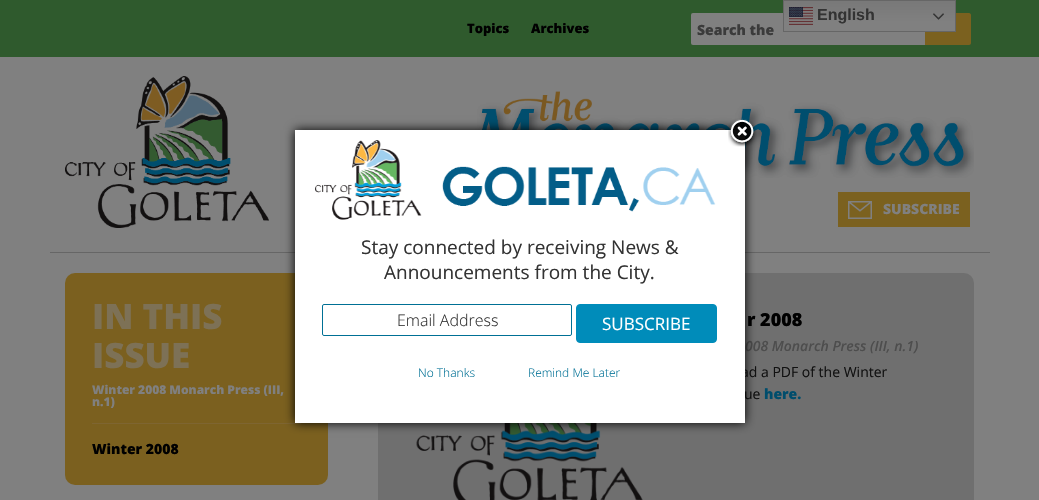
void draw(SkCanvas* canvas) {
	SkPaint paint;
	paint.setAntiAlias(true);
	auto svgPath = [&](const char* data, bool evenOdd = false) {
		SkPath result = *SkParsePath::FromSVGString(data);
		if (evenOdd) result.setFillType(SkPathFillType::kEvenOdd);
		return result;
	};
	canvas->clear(0xff808080);
	paint.setColor(0xff2f5a2d);
	canvas->drawRect(SkRect::MakeXYWH(0, 0, 1039, 57), paint);
	paint.setColor(0xff808080);
	canvas->drawRoundRect(SkRect::MakeXYWH(691, 13, 236, 32), 2, 2, paint);
	paint.setColor(0xff7b611f);
	canvas->drawPath(svgPath("M925 13H969C970 13 971 14 971 15V43C971 44 970 45 969 45H925Z"), paint);
	{
		const SkColor colors[] = {0xff787878, 0xff808080};
		const float stops[] = {0, 0.7};
		const SkPoint ends[] = {{870, 0}, {870, 32}};
		paint.setShader(SkGradientShader::MakeLinear(ends, colors, stops, 2, SkTileMode::kClamp));
		paint.setAlpha(255);
	}
	canvas->drawRect(SkRect::MakeXYWH(784, 1, 171, 30), paint);
	paint.setStroke(true);
	paint.setStrokeWidth(1);
	paint.setShader(nullptr);
	paint.setColor(0xff666666);
	canvas->drawRect(SkRect::MakeXYWH(783.5, 0.5, 172, 31), paint);
	canvas->drawImageRect(SkImages::DeferredFromEncodedData(SkData::MakeFromFileName("img1.png")), SkRect::MakeXYWH(789, 7, 24, 18), SkSamplingOptions());
	SkFont f1(fontMgr->matchFamilyStyle("Liberation Sans", SkFontStyle::Bold()), 16);
	f1.setSubpixel(true);
	paint.setStroke(false);
	paint.setColor(0xff333333);
	canvas->drawString("English", 817, 20, f1, paint);
	canvas->drawImageRect(SkImages::DeferredFromEncodedData(SkData::MakeFromFileName("img2.png")), SkRect::MakeXYWH(933, 13, 11, 7), SkSamplingOptions());
	SkFont f2(fontMgr->matchFamilyStyle("Open Sans", SkFontStyle(800, SkFontStyle::kNormal_Width, SkFontStyle::kUpright_Slant)), 13);
	f2.setSubpixel(true);
	paint.setColor(0xff000000);
	canvas->drawString("Topics", 467, 33, f2, paint);
	canvas->drawString("Archives", 531, 33, f2, paint);
	SkFont f3(fontMgr->matchFamilyStyle("Open Sans", SkFontStyle(800, SkFontStyle::kNormal_Width, SkFontStyle::kUpright_Slant)), 14);
	f3.setSubpixel(true);
	paint.setColor(0xff3b3b3b);
	canvas->drawString("Search the", 697, 35, f3, paint);
	paint.setColor(0xff666666);
	canvas->drawRect(SkRect::MakeXYWH(50, 252, 940, 1), paint);
	canvas->drawImageRect(SkImages::DeferredFromEncodedData(SkData::MakeFromFileName("img3.png")), SkRect::MakeXYWH(65, 76, 204, 152), SkSamplingOptions());
	canvas->drawImageRect(SkImages::DeferredFromEncodedData(SkData::MakeFromFileName("img4.png")), SkRect::MakeXYWH(466, 91, 508, 87), SkSamplingOptions());
	paint.setColor(0xff7b611f);
	canvas->drawRect(SkRect::MakeXYWH(838, 192, 132, 35), paint);
	canvas->drawImageRect(SkImages::DeferredFromEncodedData(SkData::MakeFromFileName("img5.png")), SkRect::MakeXYWH(848, 201, 24, 18), SkSamplingOptions());
	paint.setColor(0xff808080);
	canvas->drawString("SUBSCRIBE", 883, 214, f3, paint);
	paint.setColor(0xff7b601f);
	canvas->drawRoundRect(SkRect::MakeXYWH(65, 273, 263, 212), 10, 10, paint);
	SkFont f4(fontMgr->matchFamilyStyle("Open Sans", SkFontStyle(800, SkFontStyle::kNormal_Width, SkFontStyle::kUpright_Slant)), 35);
	f4.setSubpixel(true);
	paint.setColor(0xff7d7156);
	canvas->drawString("IN THIS", 92, 329, f4, paint);
	canvas->drawString("ISSUE", 92, 368, f4, paint);
	paint.setColor(0xff7e6531);
	canvas->drawRect(SkRect::MakeXYWH(92, 423, 209, 1), paint);
	SkFont f5(fontMgr->matchFamilyStyle("Open Sans", SkFontStyle(800, SkFontStyle::kNormal_Width, SkFontStyle::kUpright_Slant)), 12);
	f5.setSubpixel(true);
	paint.setColor(0xff808080);
	canvas->drawString("Winter 2008 Monarch Press (III,", 92, 394, f5, paint);
	canvas->drawString("n.1)", 92, 406, f5, paint);
	paint.setColor(0xff000000);
	canvas->drawString("Winter 2008", 92, 454, f3, paint);
	paint.setColor(0xff6f6f6f);
	canvas->drawRoundRect(SkRect::MakeXYWH(378, 273, 596, 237), 10, 10, paint);
	SkFont f6(fontMgr->matchFamilyStyle("Open Sans", SkFontStyle(800, SkFontStyle::kNormal_Width, SkFontStyle::kUpright_Slant)), 18);
	f6.setSubpixel(true);
	paint.setColor(0xff000000);
	canvas->drawString("r 2008", 747, 326, f6, paint);
	SkFont f7(fontMgr->matchFamilyStyle("Open Sans", SkFontStyle(600, SkFontStyle::kNormal_Width, SkFontStyle::kItalic_Slant)), 14);
	f7.setSubpixel(true);
	paint.setColor(0xff4d4d4d);
	canvas->drawString("008 Monarch Press (III, n.1)", 745, 351, f7, paint);
	SkFont f8(fontMgr->matchFamilyStyle("Open Sans", SkFontStyle::Normal()), 14);
	f8.setSubpixel(true);
	paint.setColor(0xff111111);
	canvas->drawString("ad a PDF of the Winter", 741, 377, f8, paint);
	canvas->drawString("ue", 744, 399, f8, paint);
	paint.setColor(0xff004d6c);
	canvas->drawString("here.", 764, 399, f3, paint);
	canvas->drawImageRect(SkImages::DeferredFromEncodedData(SkData::MakeFromFileName("img6.png")), SkRect::MakeXYWH(416, 423, 227, 77), SkSamplingOptions());
	paint.setColor(0xff000000);
	paint.setMaskFilter(SkMaskFilter::MakeBlur(kNormal_SkBlurStyle, 5));
	canvas->drawRect(SkRect::MakeXYWH(295, 130, 450, 293), paint);
	paint.setMaskFilter(nullptr);
	paint.setColor(0xffffffff);
	canvas->drawRect(SkRect::MakeXYWH(295, 130, 450, 293), paint);
	canvas->drawImageRect(SkImages::DeferredFromEncodedData(SkData::MakeFromFileName("img7.png")), SkRect::MakeXYWH(728, 118, 29, 29), SkSamplingOptions());
	canvas->drawImageRect(SkImages::DeferredFromEncodedData(SkData::MakeFromFileName("img8.png")), SkRect::MakeXYWH(315, 140, 401, 80), SkSamplingOptions());
	SkFont f9(fontMgr->matchFamilyStyle("Open Sans", SkFontStyle::Normal()), 19);
	f9.setSubpixel(true);
	paint.setColor(0xff333333);
	canvas->drawString("Stay connected by receiving News &", 361, 254, f9, paint);
	canvas->drawString("Announcements from the City.", 384, 279, f9, paint);
	paint.setStroke(true);
	paint.setColor(0xff007095);
	canvas->drawRoundRect(SkRect::MakeXYWH(322.5, 304.5, 249, 31), 1.5, 1.5, paint);
	SkFont f10(fontMgr->matchFamilyStyle("Open Sans", SkFontStyle(300, SkFontStyle::kNormal_Width, SkFontStyle::kUpright_Slant)), 16);
	f10.setSubpixel(true);
	paint.setStroke(false);
	paint.setColor(0xff333333);
	canvas->drawString("Email Address", 397, 326, f10, paint);
	paint.setColor(0xff008cba);
	canvas->drawRoundRect(SkRect::MakeXYWH(576.5, 304.5, 140, 38), 3.5, 3.5, paint);
	paint.setStroke(true);
	canvas->drawRoundRect(SkRect::MakeXYWH(576.5, 304.5, 140, 38), 3.5, 3.5, paint);
	SkFont f11(fontMgr->matchFamilyStyle("Open Sans", SkFontStyle::Normal()), 17);
	f11.setSubpixel(true);
	paint.setStroke(false);
	paint.setColor(0xffffffff);
	canvas->drawString("SUBSCRIBE", 602, 330, f11, paint);
	SkFont f12(fontMgr->matchFamilyStyle("Open Sans", SkFontStyle(300, SkFontStyle::kNormal_Width, SkFontStyle::kUpright_Slant)), 12);
	f12.setSubpixel(true);
	paint.setColor(0xff007095);
	canvas->drawString("No Thanks", 418, 377, f12, paint);
	canvas->drawString("Remind Me Later", 528, 377, f12, paint);
}
